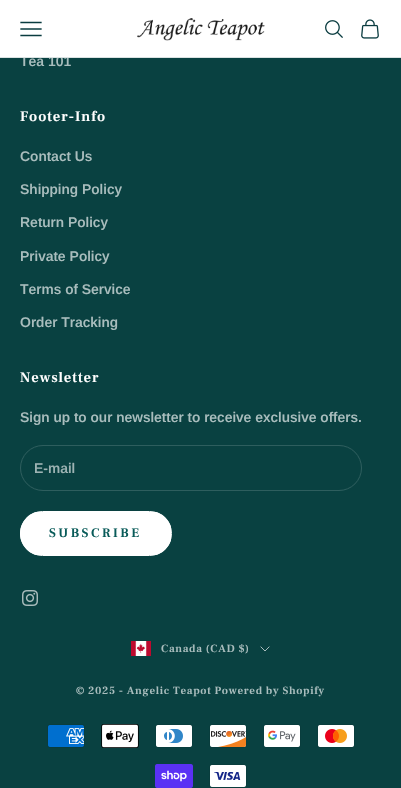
void draw(SkCanvas* canvas) {
	SkPaint paint;
	paint.setAntiAlias(true);
	auto spacedText = [&](const char* s, float x, float y, const SkFont& font, const SkPaint& ink, float letter, float word) {
		std::vector<SkGlyphID> glyphs(font.countText(s, strlen(s), SkTextEncoding::kUTF8));
		std::vector<float> xs(glyphs.size());
		font.textToGlyphs(s, strlen(s), SkTextEncoding::kUTF8, glyphs);
		font.getXPos(glyphs, xs, x);
		float extra = 0;
		for (size_t i = 0; i < glyphs.size(); i++) {
			xs[i] += extra;
			extra += letter + word * (glyphs[i] == font.unicharToGlyph(' '));
		}
		canvas->drawTextBlob(SkTextBlob::MakeFromPosHGlyphs(glyphs, xs, y, font), 0, 0, ink);
	};
	auto svgPath = [&](const char* data, bool evenOdd = false) {
		SkPath result = *SkParsePath::FromSVGString(data);
		if (evenOdd) result.setFillType(SkPathFillType::kEvenOdd);
		return result;
	};
	canvas->clear(0xff094141);
	SkFont f1(fontMgr->matchFamilyStyle("Arimo", SkFontStyle(600, SkFontStyle::kNormal_Width, SkFontStyle::kUpright_Slant)), 14);
	f1.setSubpixel(true);
	paint.setColor(0xffa9bdbd);
	canvas->drawString("Tea 101", 20, 66, f1, paint);
	paint.setColor(0xffffffff);
	canvas->drawRect(SkRect::MakeXYWH(0, 0, 401, 57), paint);
	paint.setColor(0xffdae2e2);
	canvas->drawRect(SkRect::MakeXYWH(0, 57, 401, 1), paint);
	paint.setStroke(true);
	paint.setStrokeWidth(1.3);
	paint.setStrokeCap(SkPaint::kSquare_Cap);
	paint.setColor(0xff0a3c40);
	canvas->drawPath(svgPath("M21 35.5H41M21 29H41M21 22.5H41"), paint);
	canvas->drawImageRect(SkImages::DeferredFromEncodedData(SkData::MakeFromFileName("img1.png")), SkRect::MakeXYWH(137, 18, 128, 23), SkSamplingOptions());
	canvas->drawImageRect(SkImages::DeferredFromEncodedData(SkData::MakeFromFileName("img2.png")), SkRect::MakeXYWH(325, 20, 18, 18), SkSamplingOptions());
	canvas->drawImageRect(SkImages::DeferredFromEncodedData(SkData::MakeFromFileName("img3.png")), SkRect::MakeXYWH(361, 19, 18, 20), SkSamplingOptions());
	SkFont f2(fontMgr->matchFamilyStyle("Frank Ruhl Libre", SkFontStyle(600, SkFontStyle::kNormal_Width, SkFontStyle::kUpright_Slant)), 14.5);
	f2.setSubpixel(true);
	paint.setStroke(false);
	paint.setColor(0xffffffff);
	spacedText("Footer-Info", 20, 121, f2, paint, 0.9, 0);
	paint.setColor(0xffa9bdbd);
	canvas->drawString("Contact Us", 20, 161, f1, paint);
	canvas->drawString("Shipping Policy", 20, 194, f1, paint);
	canvas->drawString("Return Policy", 20, 227, f1, paint);
	canvas->drawString("Private Policy", 20, 261, f1, paint);
	canvas->drawString("Terms of Service", 20, 294, f1, paint);
	canvas->drawString("Order Tracking", 20, 327, f1, paint);
	paint.setColor(0xffffffff);
	spacedText("Newsletter", 20, 382, f2, paint, 0.9, 0);
	paint.setColor(0xffa9bdbd);
	canvas->drawString("Sign up to our newsletter to receive exclusive offers.", 20, 422, f1, paint);
	paint.setStroke(true);
	paint.setStrokeWidth(1);
	paint.setStrokeCap(SkPaint::kButt_Cap);
	paint.setColor(0xff2e5e5e);
	canvas->drawRoundRect(SkRect::MakeXYWH(20.5, 445.5, 341, 45), 22.5, 22.5, paint);
	paint.setStroke(false);
	paint.setColor(0xff9db3b3);
	canvas->drawString("E-mail", 34, 473, f1, paint);
	canvas->save();
	canvas->clipPath(svgPath("M42.5 511H149.5C162 511 172 521 172 533.5C172 546 162 556 149.5 556H42.5C30 556 20 546 20 533.5C20 521 30 511 42.5 511Z"), true);
	paint.setColor(0xffffffff);
	canvas->drawRect(SkRect::MakeXYWH(20, 512, 151, 43), paint);
	canvas->restore();
	paint.setStroke(true);
	canvas->drawRoundRect(SkRect::MakeXYWH(20.5, 511.5, 151, 44), 22, 22, paint);
	SkFont f3(fontMgr->matchFamilyStyle("Frank Ruhl Libre", SkFontStyle(600, SkFontStyle::kNormal_Width, SkFontStyle::kUpright_Slant)), 13);
	f3.setSubpixel(true);
	paint.setStroke(false);
	paint.setColor(0xff095b59);
	spacedText("SUBSCRIBE", 49, 537, f3, paint, 2.5, 0);
	canvas->drawImageRect(SkImages::DeferredFromEncodedData(SkData::MakeFromFileName("img4.png")), SkRect::MakeXYWH(22, 590, 16, 16), SkSamplingOptions());
	canvas->drawImageRect(SkImages::DeferredFromEncodedData(SkData::MakeFromFileName("img5.png")), SkRect::MakeXYWH(131, 641, 20, 15), SkSamplingOptions());
	SkFont f4(fontMgr->matchFamilyStyle("Frank Ruhl Libre", SkFontStyle(600, SkFontStyle::kNormal_Width, SkFontStyle::kUpright_Slant)), 11);
	f4.setSubpixel(true);
	paint.setColor(0xffa9bdbd);
	spacedText("Canada (CAD $)", 161, 652, f4, paint, 0.65, 0);
	paint.setStroke(true);
	paint.setStrokeCap(SkPaint::kSquare_Cap);
	canvas->drawPath(svgPath("M261 647L265 651L269 647"), paint);
	paint.setStroke(false);
	spacedText("© 2025 - Angelic Teapot Powered by Shopify", 76, 694, f4, paint, 0.65, 0);
	canvas->drawImageRect(SkImages::DeferredFromEncodedData(SkData::MakeFromFileName("img6.png")), SkRect::MakeXYWH(47, 724, 38, 24), SkSamplingOptions());
	canvas->drawImageRect(SkImages::DeferredFromEncodedData(SkData::MakeFromFileName("img7.png")), SkRect::MakeXYWH(101, 724, 38, 24), SkSamplingOptions());
	canvas->drawImageRect(SkImages::DeferredFromEncodedData(SkData::MakeFromFileName("img8.png")), SkRect::MakeXYWH(155, 724, 38, 24), SkSamplingOptions());
	canvas->drawImageRect(SkImages::DeferredFromEncodedData(SkData::MakeFromFileName("img9.png")), SkRect::MakeXYWH(209, 724, 38, 24), SkSamplingOptions());
	canvas->drawImageRect(SkImages::DeferredFromEncodedData(SkData::MakeFromFileName("img10.png")), SkRect::MakeXYWH(263, 724, 38, 24), SkSamplingOptions());
	canvas->drawImageRect(SkImages::DeferredFromEncodedData(SkData::MakeFromFileName("img11.png")), SkRect::MakeXYWH(317, 724, 38, 24), SkSamplingOptions());
	canvas->drawImageRect(SkImages::DeferredFromEncodedData(SkData::MakeFromFileName("img12.png")), SkRect::MakeXYWH(155, 764, 38, 24), SkSamplingOptions());
	canvas->drawImageRect(SkImages::DeferredFromEncodedData(SkData::MakeFromFileName("img13.png")), SkRect::MakeXYWH(209, 764, 38, 24), SkSamplingOptions());
}
